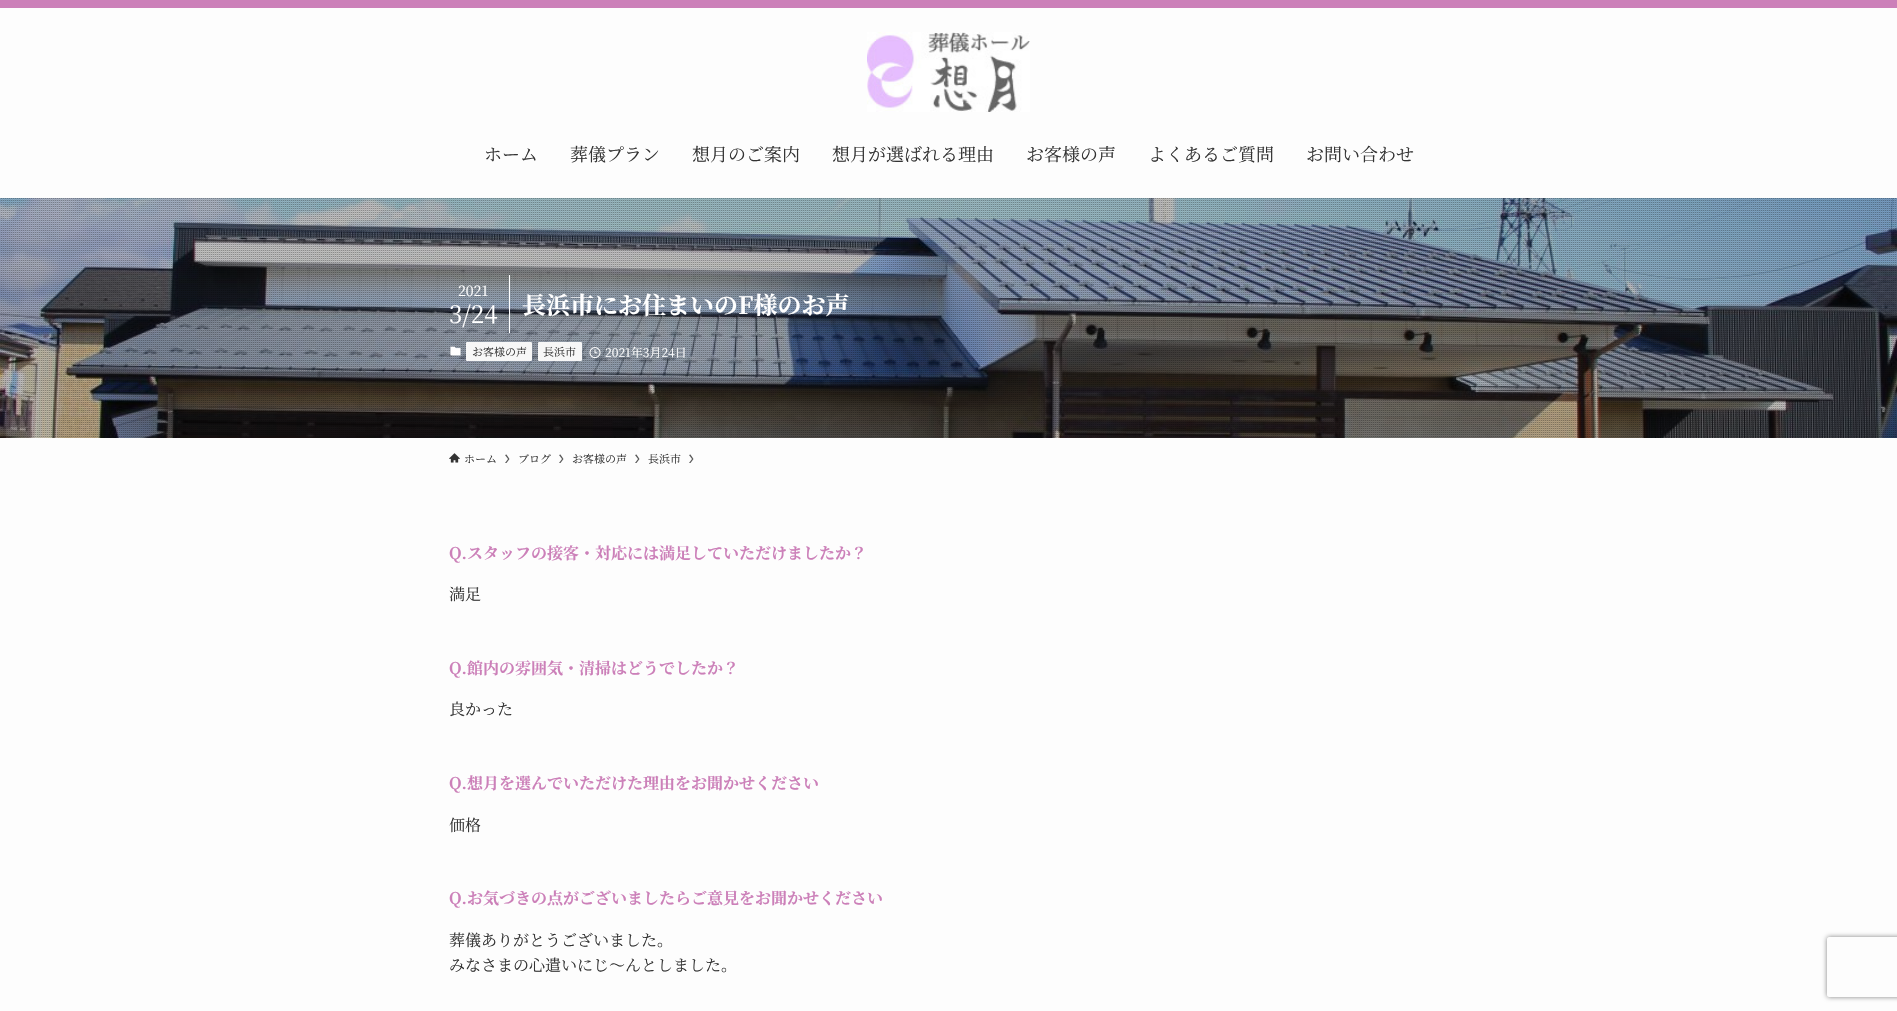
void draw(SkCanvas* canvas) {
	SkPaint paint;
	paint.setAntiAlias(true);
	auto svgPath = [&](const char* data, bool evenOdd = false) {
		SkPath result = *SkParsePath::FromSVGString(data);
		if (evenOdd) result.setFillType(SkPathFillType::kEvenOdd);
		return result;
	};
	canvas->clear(0xfffdfdfd);
	paint.setColor(0xffcc80b9);
	canvas->drawRect(SkRect::MakeXYWH(0, 0, 1897, 8), paint);
	canvas->drawImageRect(SkImages::DeferredFromEncodedData(SkData::MakeFromFileName("img1.png")), SkRect::MakeXYWH(867, 32, 163, 80), SkSamplingOptions());
	SkFont f1(fontMgr->matchFamilyStyle("Noto Serif JP", SkFontStyle::Normal()), 18);
	f1.setSubpixel(true);
	paint.setColor(0xff333333);
	canvas->drawString("ホーム", 484, 161, f1, paint);
	canvas->drawString("葬儀プラン", 570, 161, f1, paint);
	canvas->drawString("想月のご案内", 692, 161, f1, paint);
	canvas->drawString("想月が選ばれる理由", 832, 161, f1, paint);
	canvas->drawString("お客様の声", 1026, 161, f1, paint);
	canvas->drawString("よくあるご質問", 1148, 161, f1, paint);
	canvas->drawString("お問い合わせ", 1306, 161, f1, paint);
	canvas->drawImageRect(SkImages::DeferredFromEncodedData(SkData::MakeFromFileName("img2.png")), SkRect::MakeXYWH(0, 198, 1897, 240), SkSamplingOptions());
	canvas->drawImageRect(SkImages::DeferredFromEncodedData(SkData::MakeFromFileName("img3.png")), SkRect::MakeXYWH(0, 198, 1897, 240), SkSamplingOptions());
	paint.setColor(0xffffffff);
	canvas->drawRect(SkRect::MakeXYWH(509, 275, 1, 58), paint);
	SkFont f2(fontMgr->matchFamilyStyle("Noto Serif JP", SkFontStyle::Normal()), 14);
	f2.setSubpixel(true);
	canvas->drawString("2021", 458, 296, f2, paint);
	SkFont f3(fontMgr->matchFamilyStyle("Noto Serif JP", SkFontStyle::Normal()), 24);
	f3.setSubpixel(true);
	canvas->drawString("3/24", 449, 323, f3, paint);
	SkFont f4(fontMgr->matchFamilyStyle("Noto Serif JP", SkFontStyle::Bold()), 24);
	f4.setSubpixel(true);
	canvas->drawString("長浜市にお住まいのF様のお声", 522, 314, f4, paint);
	canvas->drawImageRect(SkImages::DeferredFromEncodedData(SkData::MakeFromFileName("img4.png")), SkRect::MakeXYWH(450, 346, 11, 10), SkSamplingOptions());
	paint.setColor(0xfff7f7f7);
	canvas->drawRoundRect(SkRect::MakeXYWH(466, 342, 66, 19), 1, 1, paint);
	SkFont f5(fontMgr->matchFamilyStyle("Noto Serif JP", SkFontStyle::Normal()), 11);
	f5.setSubpixel(true);
	paint.setColor(0xff333333);
	canvas->drawString("お客様の声", 472, 356, f5, paint);
	paint.setColor(0xfff7f7f7);
	canvas->drawRoundRect(SkRect::MakeXYWH(538, 342, 44, 19), 1, 1, paint);
	paint.setColor(0xff333333);
	canvas->drawString("長浜市", 543, 356, f5, paint);
	canvas->drawImageRect(SkImages::DeferredFromEncodedData(SkData::MakeFromFileName("img5.png")), SkRect::MakeXYWH(589, 347, 12, 12), SkSamplingOptions());
	SkFont f6(fontMgr->matchFamilyStyle("Noto Serif JP", SkFontStyle::Normal()), 12);
	f6.setSubpixel(true);
	paint.setColor(0xffffffff);
	canvas->drawString("2021年3月24日", 605, 357, f6, paint);
	canvas->drawImageRect(SkImages::DeferredFromEncodedData(SkData::MakeFromFileName("img6.png")), SkRect::MakeXYWH(449, 453, 11, 10), SkSamplingOptions());
	paint.setColor(0xff333333);
	canvas->drawString("ホーム", 464, 463, f5, paint);
	paint.setColor(0xff5b5b5b);
	canvas->drawPath(svgPath("M506.5 454.5L505 455L508 459L505 463H506.5L509.5 459Z"), paint);
	paint.setColor(0xff333333);
	canvas->drawString("ブログ", 518, 463, f5, paint);
	paint.setColor(0xff5b5b5b);
	canvas->drawPath(svgPath("M560.5 454.5L559 455L562 459L559 463H560.5L563.5 459Z"), paint);
	paint.setColor(0xff333333);
	canvas->drawString("お客様の声", 572, 463, f5, paint);
	paint.setColor(0xff5b5b5b);
	canvas->drawPath(svgPath("M636.5 454.5L635 455L638 459L635 463H636.5L639.5 459Z"), paint);
	paint.setColor(0xff333333);
	canvas->drawString("長浜市", 648, 463, f5, paint);
	paint.setColor(0xff5b5b5b);
	canvas->drawPath(svgPath("M690.5 454.5L689 455L692 459L689 463H690.5L693.5 459Z"), paint);
	SkFont f7(fontMgr->matchFamilyStyle("Noto Serif JP", SkFontStyle::Bold()), 16);
	f7.setSubpixel(true);
	paint.setColor(0xffcc80b9);
	canvas->drawString("Q.スタッフの接客・対応には満足していただけましたか？", 449, 559, f7, paint);
	SkFont f8(fontMgr->matchFamilyStyle("Noto Serif JP", SkFontStyle::Normal()), 16);
	f8.setSubpixel(true);
	paint.setColor(0xff333333);
	canvas->drawString("満足", 449, 600, f8, paint);
	paint.setColor(0xffcc80b9);
	canvas->drawString("Q.館内の雰囲気・清掃はどうでしたか？", 449, 674, f7, paint);
	paint.setColor(0xff333333);
	canvas->drawString("良かった", 449, 715, f8, paint);
	paint.setColor(0xffcc80b9);
	canvas->drawString("Q.想月を選んでいただけた理由をお聞かせください", 449, 789, f7, paint);
	paint.setColor(0xff333333);
	canvas->drawString("価格", 449, 831, f8, paint);
	paint.setColor(0xffcc80b9);
	canvas->drawString("Q.お気づきの点がございましたらご意見をお聞かせください", 449, 904, f7, paint);
	paint.setColor(0xff333333);
	canvas->drawString("葬儀ありがとうございました。", 449, 946, f8, paint);
	canvas->drawString("みなさまの心遣いにじ〜んとしました。", 449, 971, f8, paint);
	canvas->save();
	canvas->clipPath(svgPath("M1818 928H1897V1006H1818ZM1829 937H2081C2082 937 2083 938 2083 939V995C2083 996 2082 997 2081 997H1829C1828 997 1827 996 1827 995V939C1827 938 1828 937 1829 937Z", true), true);
	paint.setColor(0xff808080);
	paint.setMaskFilter(SkMaskFilter::MakeBlur(kNormal_SkBlurStyle, 2.5));
	canvas->drawRoundRect(SkRect::MakeXYWH(1827, 937, 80, 60), 2, 2, paint);
	paint.setMaskFilter(nullptr);
	canvas->restore();
}
